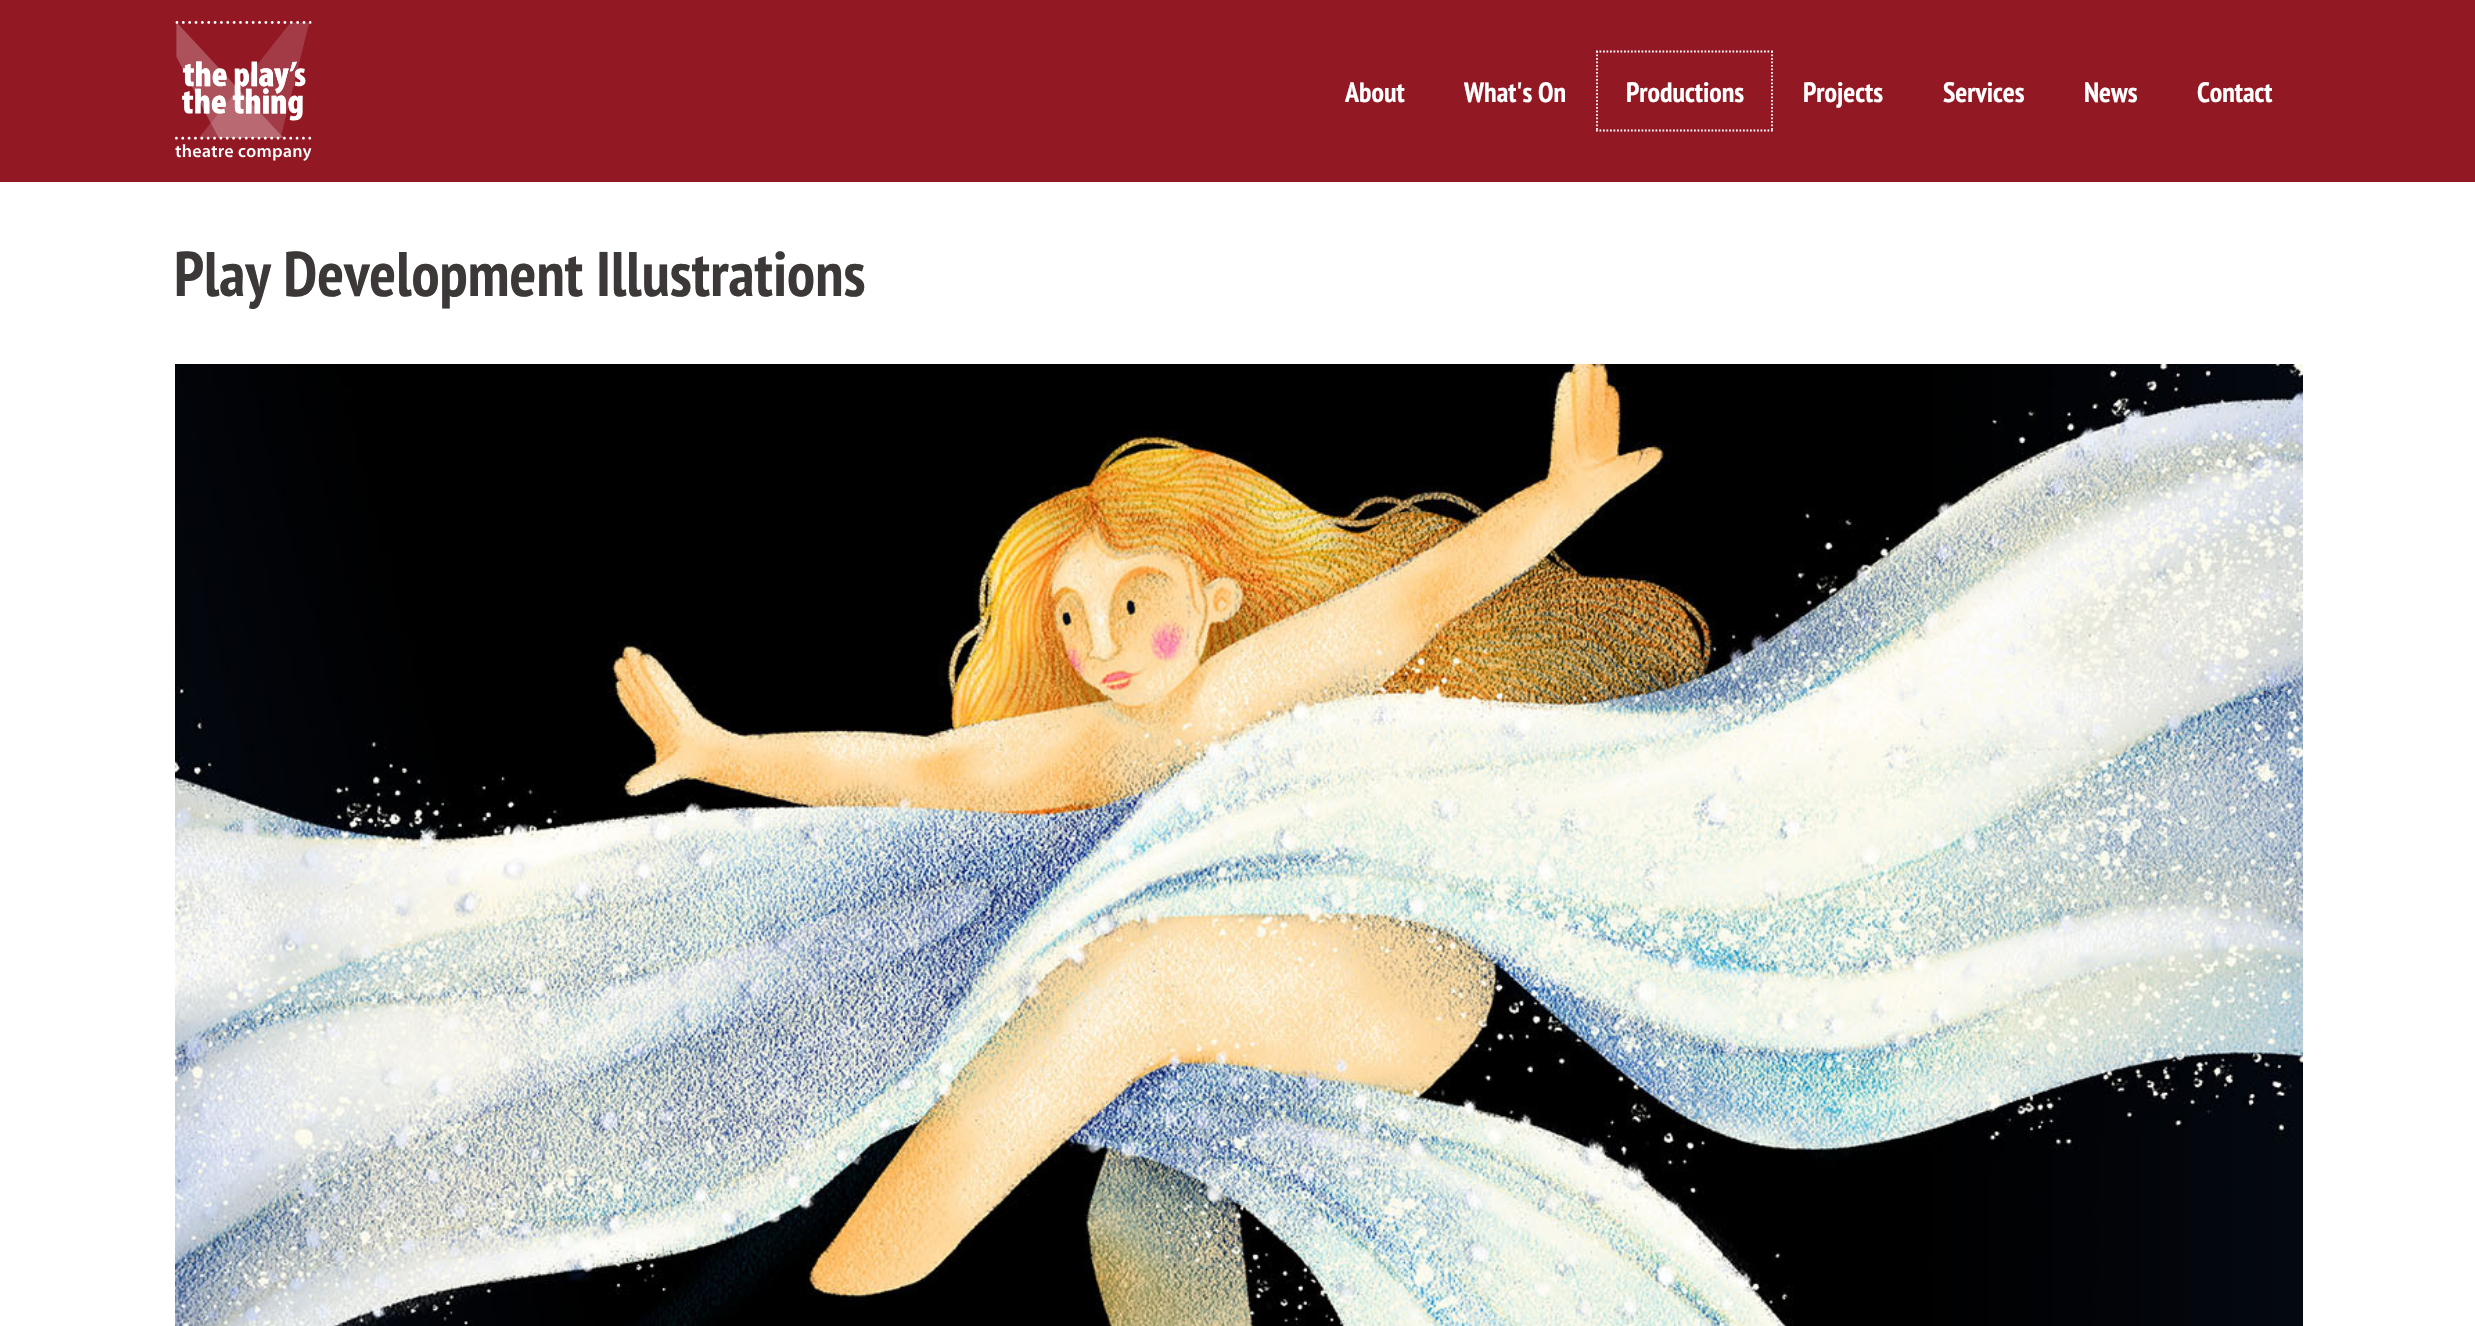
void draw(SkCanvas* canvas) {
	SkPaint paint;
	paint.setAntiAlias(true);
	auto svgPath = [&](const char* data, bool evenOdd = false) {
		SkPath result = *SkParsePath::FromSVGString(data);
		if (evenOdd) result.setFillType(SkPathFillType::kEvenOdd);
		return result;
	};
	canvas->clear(0xffffffff);
	paint.setColor(0xff921824);
	canvas->drawRect(SkRect::MakeXYWH(0, 0, 2475, 182), paint);
	canvas->drawImageRect(SkImages::DeferredFromEncodedData(SkData::MakeFromFileName("img1.png")), SkRect::MakeXYWH(175, 21, 137, 140), SkSamplingOptions());
	SkFont f1(fontMgr->matchFamilyStyle("PT Sans Narrow", SkFontStyle::Bold()), 28);
	f1.setSubpixel(true);
	paint.setColor(0xffffffff);
	canvas->drawString("About", 1345, 102, f1, paint);
	canvas->drawString("What's On", 1464, 102, f1, paint);
	canvas->drawString("Productions", 1626, 102, f1, paint);
	paint.setStroke(true);
	paint.setStrokeWidth(1.8);
	paint.setPathEffect(SkDashPathEffect::Make({{1.75f, 1.75f}}, 0));
	canvas->drawPath(svgPath("M1596 51.5H1773"), paint);
	paint.setPathEffect(nullptr);
	paint.setPathEffect(SkDashPathEffect::Make({{1.75f, 1.75f}}, 0));
	canvas->drawPath(svgPath("M1772 51V131"), paint);
	paint.setPathEffect(nullptr);
	paint.setPathEffect(SkDashPathEffect::Make({{1.75f, 1.75f}}, 0));
	canvas->drawPath(svgPath("M1596 130.5H1773"), paint);
	paint.setPathEffect(nullptr);
	paint.setPathEffect(SkDashPathEffect::Make({{1.75f, 1.75f}}, 0));
	canvas->drawPath(svgPath("M1597 51V131"), paint);
	paint.setPathEffect(nullptr);
	paint.setStroke(false);
	canvas->drawString("Projects", 1803, 102, f1, paint);
	canvas->drawString("Services", 1943, 102, f1, paint);
	canvas->drawString("News", 2084, 102, f1, paint);
	canvas->drawString("Contact", 2197, 102, f1, paint);
	SkFont f2(fontMgr->matchFamilyStyle("PT Sans Narrow", SkFontStyle::Bold()), 63);
	f2.setSubpixel(true);
	paint.setColor(0xff3c3838);
	canvas->drawString("Play Development Illustrations", 174, 296, f2, paint);
	canvas->drawImageRect(SkImages::DeferredFromEncodedData(SkData::MakeFromFileName("img2.png")), SkRect::MakeXYWH(175, 364, 2128, 962), SkSamplingOptions());
}
